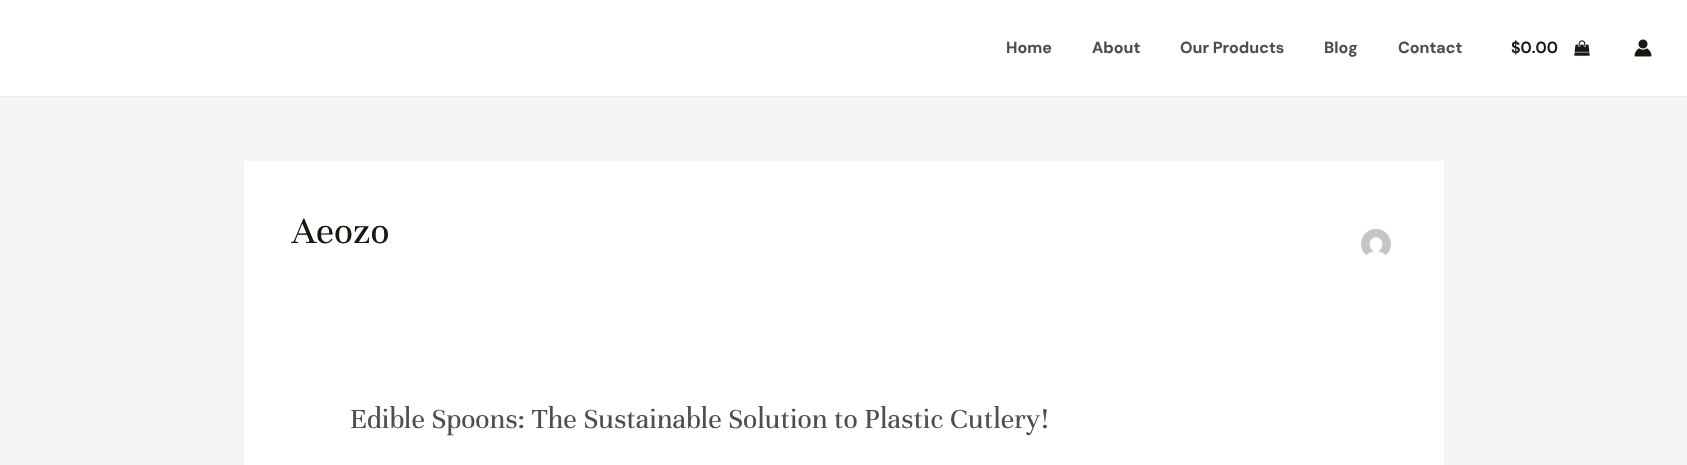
void draw(SkCanvas* canvas) {
	SkPaint paint;
	paint.setAntiAlias(true);
	canvas->clear(0xfff4f6f3);
	paint.setColor(0xffffffff);
	canvas->drawRect(SkRect::MakeXYWH(0, 0, 1687, 96), paint);
	paint.setColor(0xffeaeaea);
	canvas->drawRect(SkRect::MakeXYWH(0, 96, 1687, 1), paint);
	SkFont f1(fontMgr->matchFamilyStyle("DM Sans", SkFontStyle::Bold()), 16);
	f1.setSubpixel(true);
	paint.setColor(0xff4d4f48);
	canvas->drawString("Home", 1006, 53, f1, paint);
	canvas->drawString("About", 1092, 53, f1, paint);
	canvas->drawString("Our Products", 1180, 53, f1, paint);
	canvas->drawString("Blog", 1324, 53, f1, paint);
	canvas->drawString("Contact", 1398, 53, f1, paint);
	SkFont f2(fontMgr->matchFamilyStyle("DM Sans", SkFontStyle(600, SkFontStyle::kNormal_Width, SkFontStyle::kUpright_Slant)), 16);
	f2.setSubpixel(true);
	paint.setColor(0xff141a0f);
	canvas->drawString("$0.00", 1511, 53, f2, paint);
	canvas->drawImageRect(SkImages::DeferredFromEncodedData(SkData::MakeFromFileName("img1.png")), SkRect::MakeXYWH(1574, 40, 16, 16), SkSamplingOptions());
	canvas->drawImageRect(SkImages::DeferredFromEncodedData(SkData::MakeFromFileName("img2.png")), SkRect::MakeXYWH(1634, 39, 18, 18), SkSamplingOptions());
	paint.setColor(0xffffffff);
	canvas->drawRect(SkRect::MakeXYWH(244, 161, 1200, 304), paint);
	SkFont f3(fontMgr->matchFamilyStyle("Unna", SkFontStyle::Normal()), 40);
	f3.setSubpixel(true);
	paint.setColor(0xff141a0f);
	canvas->drawString("Aeozo", 292, 243, f3, paint);
	canvas->drawImageRect(SkImages::DeferredFromEncodedData(SkData::MakeFromFileName("img3.png")), SkRect::MakeXYWH(1361, 229, 30, 27), SkSamplingOptions());
	SkFont f4(fontMgr->matchFamilyStyle("Unna", SkFontStyle::Normal()), 30);
	f4.setSubpixel(true);
	paint.setColor(0xff4d4f48);
	canvas->drawString("Edible Spoons: The Sustainable Solution to Plastic Cutlery!", 350, 428, f4, paint);
}
